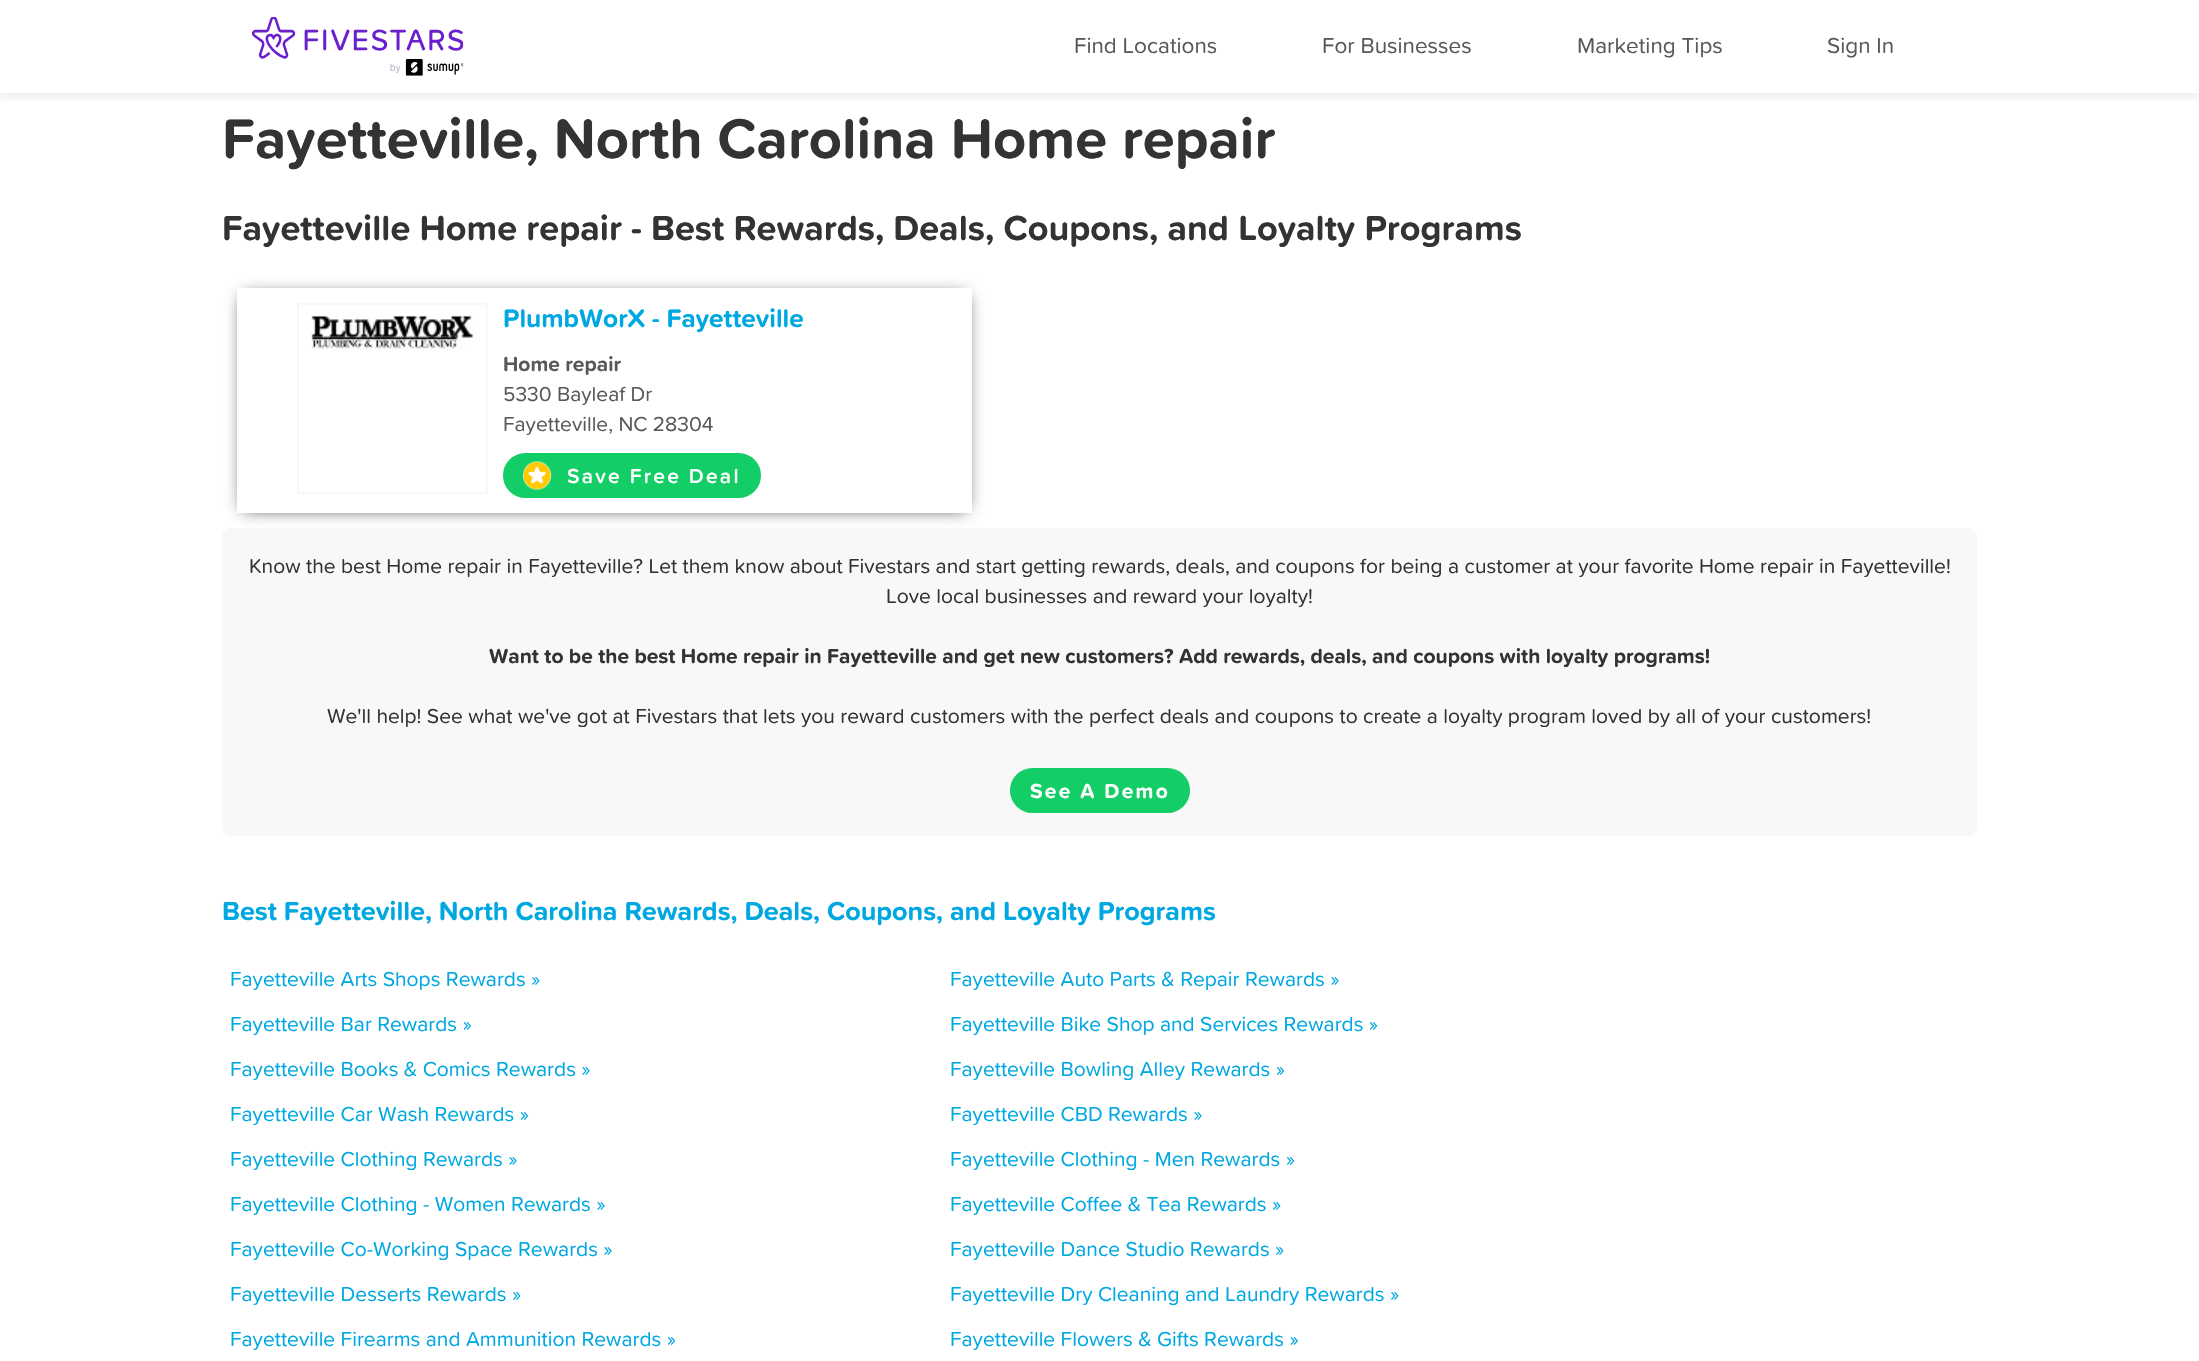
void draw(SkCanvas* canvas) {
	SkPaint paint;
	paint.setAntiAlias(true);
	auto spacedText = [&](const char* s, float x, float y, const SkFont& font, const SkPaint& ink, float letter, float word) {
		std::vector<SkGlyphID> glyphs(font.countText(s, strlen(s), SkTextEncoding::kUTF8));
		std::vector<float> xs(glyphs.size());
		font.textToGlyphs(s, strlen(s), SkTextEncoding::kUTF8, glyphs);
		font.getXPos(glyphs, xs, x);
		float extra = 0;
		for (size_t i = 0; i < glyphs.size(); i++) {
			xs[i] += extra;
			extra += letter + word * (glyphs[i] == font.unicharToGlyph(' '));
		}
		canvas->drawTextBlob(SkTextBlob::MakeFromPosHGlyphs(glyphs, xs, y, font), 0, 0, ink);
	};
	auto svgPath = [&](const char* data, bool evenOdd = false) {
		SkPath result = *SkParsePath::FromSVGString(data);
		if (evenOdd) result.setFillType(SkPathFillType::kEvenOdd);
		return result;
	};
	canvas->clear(0xffffffff);
	canvas->save();
	canvas->clipRect(SkRect::MakeXYWH(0, 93, 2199, 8));
	paint.setColor(0x1a000000);
	paint.setMaskFilter(SkMaskFilter::MakeBlur(kNormal_SkBlurStyle, 7.5));
	canvas->drawRect(SkRect::MakeXYWH(0, 2, 2199, 93), paint);
	paint.setMaskFilter(nullptr);
	canvas->restore();
	canvas->drawImageRect(SkImages::DeferredFromEncodedData(SkData::MakeFromFileName("img1.png")), SkRect::MakeXYWH(252, 17, 212, 59), SkSamplingOptions());
	SkFont f1(fontMgr->matchFamilyStyle("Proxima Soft", SkFontStyle::Normal()), 22.5);
	f1.setSubpixel(true);
	paint.setColor(0xff595959);
	canvas->drawString("Find Locations", 1074, 53, f1, paint);
	canvas->drawString("For Businesses", 1322, 53, f1, paint);
	canvas->drawString("Marketing Tips", 1577, 53, f1, paint);
	canvas->drawString("Sign In", 1827, 53, f1, paint);
	SkFont f2(fontMgr->matchFamilyStyle("Proxima Soft", SkFontStyle::Bold()), 57.75);
	f2.setSubpixel(true);
	paint.setColor(0xff333333);
	canvas->drawString("Fayetteville, North Carolina Home repair", 222, 158, f2, paint);
	SkFont f3(fontMgr->matchFamilyStyle("Proxima Soft", SkFontStyle::Bold()), 36);
	f3.setSubpixel(true);
	canvas->drawString("Fayetteville Home repair - Best Rewards, Deals, Coupons, and Loyalty Programs", 222, 240, f3, paint);
	paint.setColor(0xfff8f8f8);
	canvas->drawRoundRect(SkRect::MakeXYWH(222, 528, 1755, 308), 9, 9, paint);
	canvas->save();
	canvas->clipPath(svgPath("M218 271H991V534H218ZM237 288H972V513H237Z", true), true);
	paint.setColor(0xff333333);
	paint.setMaskFilter(SkMaskFilter::MakeBlur(kNormal_SkBlurStyle, 8));
	canvas->drawRect(SkRect::MakeXYWH(243, 296, 723, 213), paint);
	paint.setMaskFilter(nullptr);
	canvas->restore();
	paint.setStroke(true);
	paint.setStrokeWidth(2);
	paint.setColor(0xfff8f8f8);
	canvas->drawRect(SkRect::MakeXYWH(298, 304, 189, 189), paint);
	canvas->drawImageRect(SkImages::DeferredFromEncodedData(SkData::MakeFromFileName("img2.png")), SkRect::MakeXYWH(311, 315, 162, 36), SkSamplingOptions());
	SkFont f4(fontMgr->matchFamilyStyle("Proxima Soft", SkFontStyle::Bold()), 26.25);
	f4.setSubpixel(true);
	paint.setStroke(false);
	paint.setColor(0xff00a8e2);
	canvas->drawString("PlumbWorX - Fayetteville", 503, 327, f4, paint);
	SkFont f5(fontMgr->matchFamilyStyle("Proxima Soft", SkFontStyle::Bold()), 21);
	f5.setSubpixel(true);
	paint.setColor(0xff595959);
	canvas->drawString("Home repair", 503, 371, f5, paint);
	SkFont f6(fontMgr->matchFamilyStyle("Proxima Soft", SkFontStyle::Normal()), 21);
	f6.setSubpixel(true);
	canvas->drawString("5330 Bayleaf Dr", 503, 401, f6, paint);
	canvas->drawString("Fayetteville, NC 28304", 503, 431, f6, paint);
	paint.setColor(0xff13ce66);
	canvas->drawRoundRect(SkRect::MakeXYWH(504, 454, 256, 43), 21.5, 21.5, paint);
	paint.setStroke(true);
	canvas->drawRoundRect(SkRect::MakeXYWH(504, 454, 256, 43), 21.5, 21.5, paint);
	canvas->drawImageRect(SkImages::DeferredFromEncodedData(SkData::MakeFromFileName("img3.png")), SkRect::MakeXYWH(523, 461, 29, 29), SkSamplingOptions());
	SkFont f7(fontMgr->matchFamilyStyle("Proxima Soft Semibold", SkFontStyle(600, SkFontStyle::kNormal_Width, SkFontStyle::kUpright_Slant)), 21);
	f7.setSubpixel(true);
	paint.setStroke(false);
	paint.setColor(0xffffffff);
	spacedText("Save Free Deal", 567, 483, f7, paint, 2.25, 0);
	paint.setColor(0xff333333);
	canvas->drawString("Know the best Home repair in Fayetteville? Let them know about Fivestars and start getting rewards, deals, and coupons for being a customer at your favorite Home repair in Fayetteville!", 249, 573, f6, paint);
	canvas->drawString("Love local businesses and reward your loyalty!", 886, 603, f6, paint);
	canvas->drawString("Want to be the best Home repair in Fayetteville and get new customers? Add rewards, deals, and coupons with loyalty programs!", 489, 663, f5, paint);
	canvas->drawString("We'll help! See what we've got at Fivestars that lets you reward customers with the perfect deals and coupons to create a loyalty program loved by all of your customers!", 327, 723, f6, paint);
	paint.setColor(0xff13ce66);
	canvas->drawRoundRect(SkRect::MakeXYWH(1011, 769, 178, 43), 21.5, 21.5, paint);
	paint.setStroke(true);
	canvas->drawRoundRect(SkRect::MakeXYWH(1011, 769, 178, 43), 21.5, 21.5, paint);
	paint.setStroke(false);
	paint.setColor(0xffffffff);
	spacedText("See A Demo", 1030, 798, f5, paint, 2.25, 0);
	SkFont f8(fontMgr->matchFamilyStyle("Proxima Soft", SkFontStyle::Bold()), 27);
	f8.setSubpixel(true);
	paint.setColor(0xff00a8e2);
	canvas->drawString("Best Fayetteville, North Carolina Rewards, Deals, Coupons, and Loyalty Programs", 222, 920, f8, paint);
	canvas->drawString("Fayetteville Arts Shops Rewards »", 230, 986, f6, paint);
	canvas->drawString("Fayetteville Auto Parts & Repair Rewards »", 950, 986, f6, paint);
	canvas->drawString("Fayetteville Bar Rewards »", 230, 1031, f6, paint);
	canvas->drawString("Fayetteville Bike Shop and Services Rewards »", 950, 1031, f6, paint);
	canvas->drawString("Fayetteville Books & Comics Rewards »", 230, 1076, f6, paint);
	canvas->drawString("Fayetteville Bowling Alley Rewards »", 950, 1076, f6, paint);
	canvas->drawString("Fayetteville Car Wash Rewards »", 230, 1121, f6, paint);
	canvas->drawString("Fayetteville CBD Rewards »", 950, 1121, f6, paint);
	canvas->drawString("Fayetteville Clothing Rewards »", 230, 1166, f6, paint);
	canvas->drawString("Fayetteville Clothing - Men Rewards »", 950, 1166, f6, paint);
	canvas->drawString("Fayetteville Clothing - Women Rewards »", 230, 1211, f6, paint);
	canvas->drawString("Fayetteville Coffee & Tea Rewards »", 950, 1211, f6, paint);
	canvas->drawString("Fayetteville Co-Working Space Rewards »", 230, 1256, f6, paint);
	canvas->drawString("Fayetteville Dance Studio Rewards »", 950, 1256, f6, paint);
	canvas->drawString("Fayetteville Desserts Rewards »", 230, 1301, f6, paint);
	canvas->drawString("Fayetteville Dry Cleaning and Laundry Rewards »", 950, 1301, f6, paint);
	canvas->drawString("Fayetteville Firearms and Ammunition Rewards »", 230, 1346, f6, paint);
	canvas->drawString("Fayetteville Flowers & Gifts Rewards »", 950, 1346, f6, paint);
}
